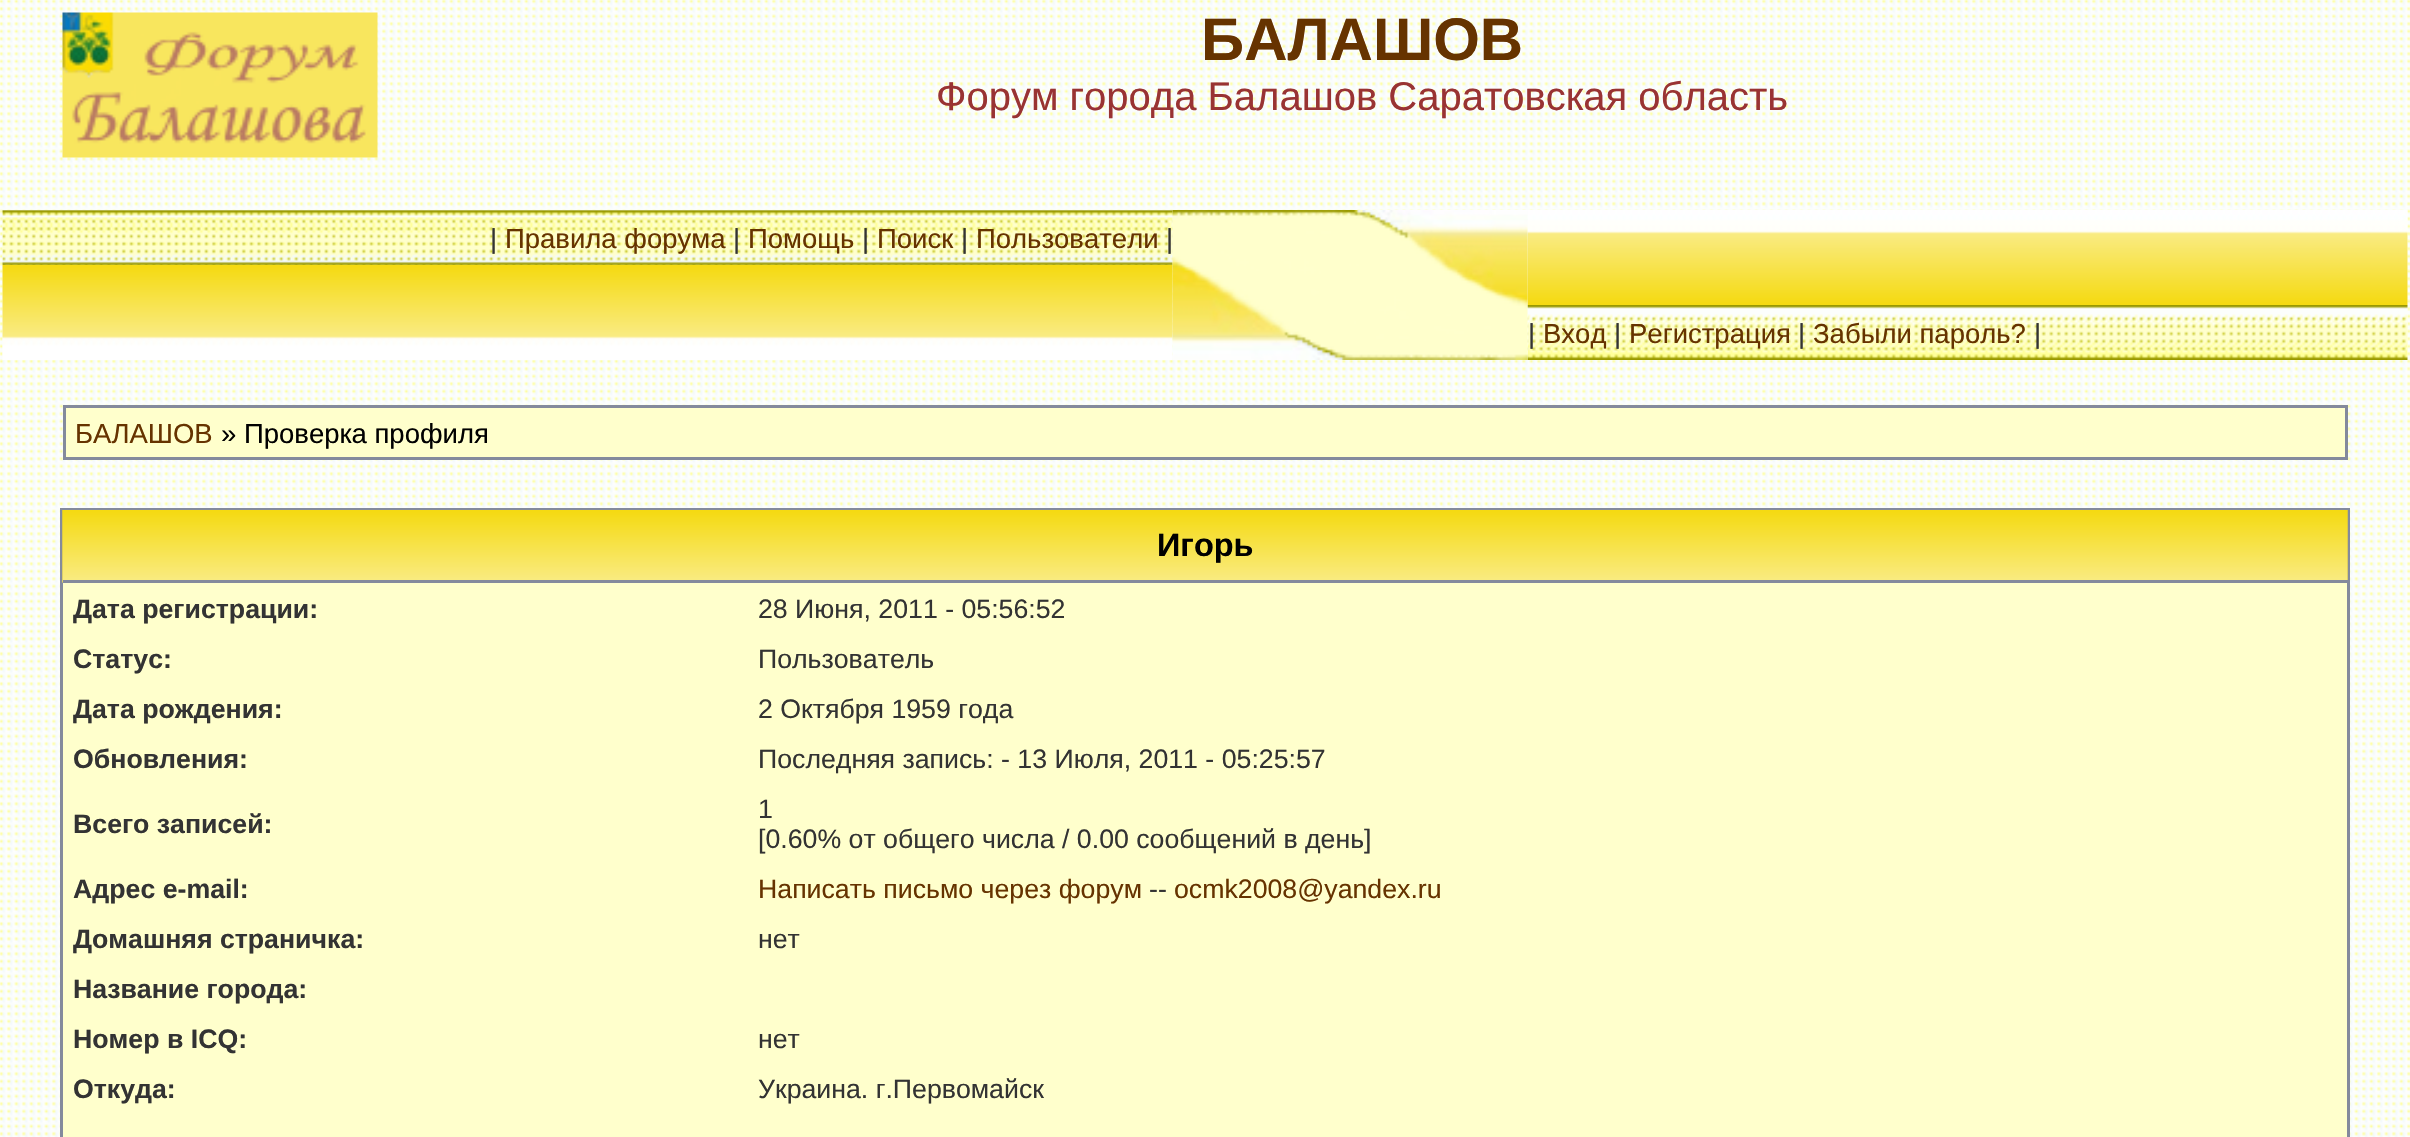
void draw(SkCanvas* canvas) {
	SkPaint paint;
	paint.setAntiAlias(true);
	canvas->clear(0xffffffff);
	canvas->drawImageRect(SkImages::DeferredFromEncodedData(SkData::MakeFromFileName("img1.png")), SkRect::MakeXYWH(0, 0, 2410, 1137), SkSamplingOptions());
	canvas->drawImageRect(SkImages::DeferredFromEncodedData(SkData::MakeFromFileName("img2.png")), SkRect::MakeXYWH(62, 12, 316, 146), SkSamplingOptions());
	SkFont f1(fontMgr->matchFamilyStyle("Liberation Sans", SkFontStyle::Bold()), 60);
	f1.setSubpixel(true);
	paint.setColor(0xff663300);
	canvas->drawString("БАЛАШОВ", 1201, 60, f1, paint);
	SkFont f2(fontMgr->matchFamilyStyle("Liberation Sans", SkFontStyle::Normal()), 40);
	f2.setSubpixel(true);
	paint.setColor(0xff993333);
	canvas->drawString("Форум города Балашов Саратовская область", 936, 110, f2, paint);
	canvas->drawImageRect(SkImages::DeferredFromEncodedData(SkData::MakeFromFileName("img3.png")), SkRect::MakeXYWH(2, 210, 1171, 55), SkSamplingOptions());
	SkFont f3(fontMgr->matchFamilyStyle("Liberation Sans", SkFontStyle::Normal()), 27.5);
	f3.setSubpixel(true);
	paint.setColor(0xff333333);
	canvas->drawString("|", 490, 248, f3, paint);
	paint.setColor(0xff663300);
	canvas->drawString("Правила форума", 505, 248, f3, paint);
	paint.setColor(0xff333333);
	canvas->drawString("|", 733, 248, f3, paint);
	paint.setColor(0xff663300);
	canvas->drawString("Помощь", 748, 248, f3, paint);
	paint.setColor(0xff333333);
	canvas->drawString("|", 862, 248, f3, paint);
	paint.setColor(0xff663300);
	canvas->drawString("Поиск", 877, 248, f3, paint);
	paint.setColor(0xff333333);
	canvas->drawString("|", 961, 248, f3, paint);
	paint.setColor(0xff663300);
	canvas->drawString("Пользователи", 976, 248, f3, paint);
	paint.setColor(0xff333333);
	canvas->drawString("|", 1166, 248, f3, paint);
	canvas->drawImageRect(SkImages::DeferredFromEncodedData(SkData::MakeFromFileName("img4.png")), SkRect::MakeXYWH(2, 265, 1171, 95), SkSamplingOptions());
	canvas->drawImageRect(SkImages::DeferredFromEncodedData(SkData::MakeFromFileName("img6.png")), SkRect::MakeXYWH(1527, 210, 881, 95), SkSamplingOptions());
	canvas->drawImageRect(SkImages::DeferredFromEncodedData(SkData::MakeFromFileName("img7.png")), SkRect::MakeXYWH(1527, 305, 881, 55), SkSamplingOptions());
	canvas->drawImageRect(SkImages::DeferredFromEncodedData(SkData::MakeFromFileName("img5.png")), SkRect::MakeXYWH(1172, 210, 356, 150), SkSamplingOptions());
	canvas->drawString("|", 1528, 343, f3, paint);
	paint.setColor(0xff663300);
	canvas->drawString("Вход", 1543, 343, f3, paint);
	paint.setColor(0xff333333);
	canvas->drawString("|", 1614, 343, f3, paint);
	paint.setColor(0xff663300);
	canvas->drawString("Регистрация", 1629, 343, f3, paint);
	paint.setColor(0xff333333);
	canvas->drawString("|", 1798, 343, f3, paint);
	paint.setColor(0xff663300);
	canvas->drawString("Забыли пароль?", 1813, 343, f3, paint);
	paint.setColor(0xff333333);
	canvas->drawString("|", 2034, 343, f3, paint);
	paint.setColor(0xffffffcc);
	canvas->drawRect(SkRect::MakeXYWH(64.5, 406.5, 2282, 52), paint);
	paint.setStroke(true);
	paint.setStrokeWidth(3);
	paint.setColor(0xff848a9c);
	canvas->drawRect(SkRect::MakeXYWH(64.5, 406.5, 2282, 52), paint);
	paint.setStroke(false);
	paint.setColor(0xff663300);
	canvas->drawString("БАЛАШОВ", 75, 443, f3, paint);
	paint.setColor(0xff000000);
	canvas->drawString("» Проверка профиля", 221, 443, f3, paint);
	paint.setColor(0xffffffcc);
	canvas->drawRect(SkRect::MakeXYWH(63, 583, 2284, 554), paint);
	paint.setStroke(true);
	paint.setColor(0xff848a9c);
	canvas->drawRect(SkRect::MakeXYWH(61.5, 509.5, 2287, 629), paint);
	canvas->drawImageRect(SkImages::DeferredFromEncodedData(SkData::MakeFromFileName("img8.png")), SkRect::MakeXYWH(62, 510, 2286, 73), SkSamplingOptions());
	paint.setStroke(false);
	canvas->drawRect(SkRect::MakeXYWH(63, 580, 2285, 3), paint);
	SkFont f4(fontMgr->matchFamilyStyle("Liberation Sans", SkFontStyle::Bold()), 32.5);
	f4.setSubpixel(true);
	paint.setColor(0xff000000);
	canvas->drawString("Игорь", 1157, 556, f4, paint);
	SkFont f5(fontMgr->matchFamilyStyle("Liberation Sans", SkFontStyle::Bold()), 26.7);
	f5.setSubpixel(true);
	paint.setColor(0xff333333);
	canvas->drawString("Дата регистрации:", 73, 618, f5, paint);
	SkFont f6(fontMgr->matchFamilyStyle("Liberation Sans", SkFontStyle::Normal()), 26.7);
	f6.setSubpixel(true);
	canvas->drawString("28 Июня, 2011 - 05:56:52", 758, 618, f6, paint);
	canvas->drawString("Статус:", 73, 668, f5, paint);
	canvas->drawString("Пользователь", 758, 668, f6, paint);
	canvas->drawString("Дата рождения:", 73, 718, f5, paint);
	canvas->drawString("2 Октября 1959 года", 758, 718, f6, paint);
	canvas->drawString("Обновления:", 73, 768, f5, paint);
	canvas->drawString("Последняя запись: - 13 Июля, 2011 - 05:25:57", 758, 768, f6, paint);
	canvas->drawString("Всего записей:", 73, 833, f5, paint);
	canvas->drawString("1", 758, 818, f6, paint);
	canvas->drawString("[0.60% от общего числа / 0.00 сообщений в день]", 758, 848, f6, paint);
	canvas->drawString("Адрес e-mail:", 73, 898, f5, paint);
	paint.setColor(0xff663300);
	canvas->drawString("Написать письмо через форум", 758, 898, f6, paint);
	paint.setColor(0xff333333);
	canvas->drawString("--", 1149, 898, f6, paint);
	paint.setColor(0xff663300);
	canvas->drawString("ocmk2008@yandex.ru", 1174, 898, f6, paint);
	paint.setColor(0xff333333);
	canvas->drawString("Домашняя страничка:", 73, 948, f5, paint);
	canvas->drawString("нет", 758, 948, f6, paint);
	canvas->drawString("Название города:", 73, 998, f5, paint);
	canvas->drawString("Номер в ICQ:", 73, 1048, f5, paint);
	canvas->drawString("нет", 758, 1048, f6, paint);
	canvas->drawString("Откуда:", 73, 1098, f5, paint);
	canvas->drawString("Украина. г.Первомайск", 758, 1098, f6, paint);
}
